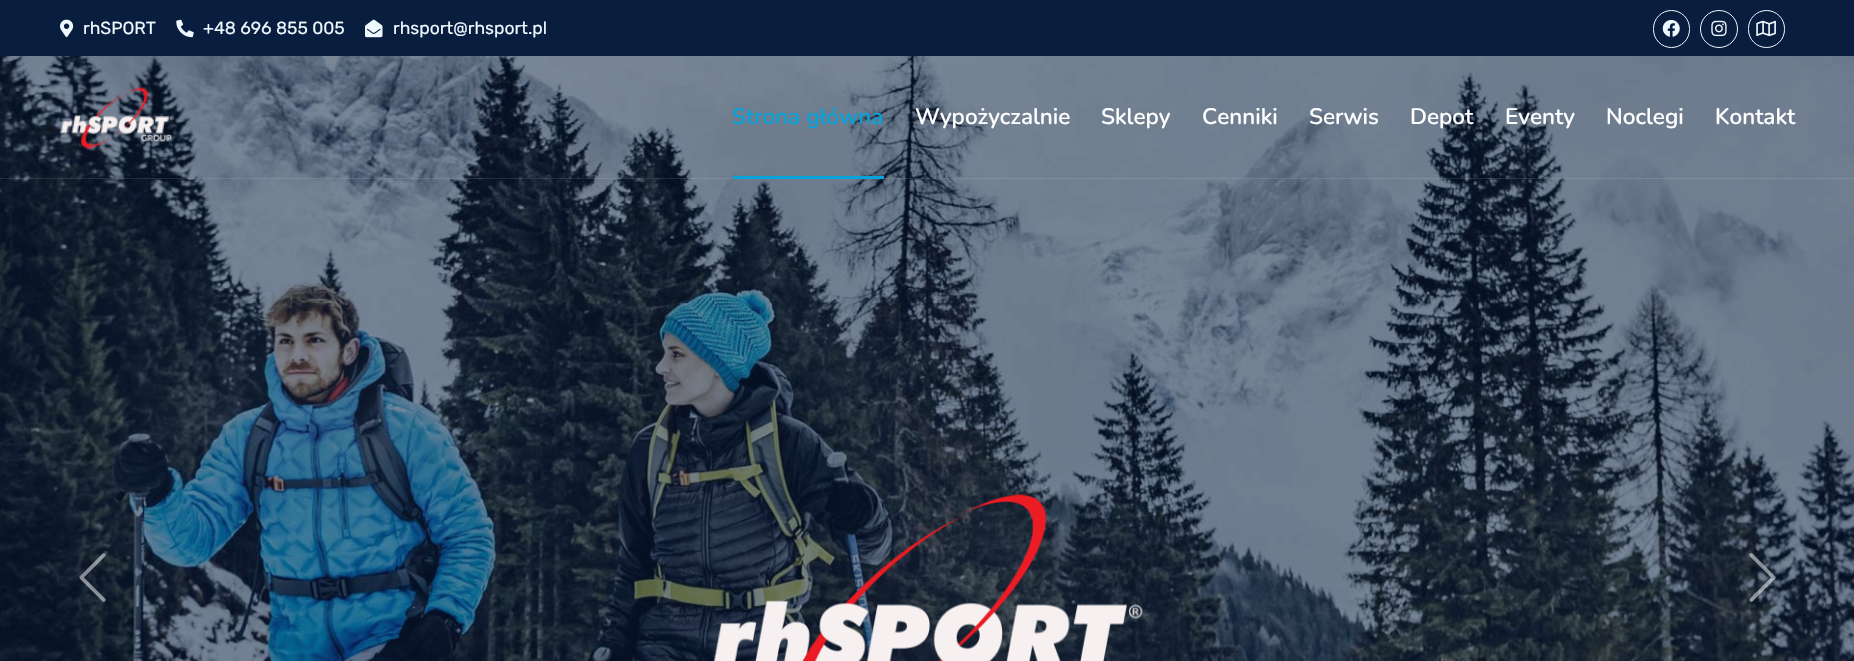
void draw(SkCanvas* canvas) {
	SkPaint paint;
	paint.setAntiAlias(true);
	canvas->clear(0xff091e3e);
	canvas->drawImageRect(SkImages::DeferredFromEncodedData(SkData::MakeFromFileName("img1.png")), SkRect::MakeXYWH(60, 19, 14, 19), SkSamplingOptions());
	SkFont f1(fontMgr->matchFamilyStyle("Rubik", SkFontStyle::Normal()), 17.5);
	f1.setSubpixel(true);
	paint.setColor(0xffeef9ff);
	canvas->drawString("rhSPORT", 83, 34, f1, paint);
	canvas->drawImageRect(SkImages::DeferredFromEncodedData(SkData::MakeFromFileName("img2.png")), SkRect::MakeXYWH(176, 19, 18, 19), SkSamplingOptions());
	canvas->drawString("+48 696 855 005", 203, 34, f1, paint);
	canvas->drawImageRect(SkImages::DeferredFromEncodedData(SkData::MakeFromFileName("img3.png")), SkRect::MakeXYWH(365, 19, 18, 19), SkSamplingOptions());
	canvas->drawString("rhsport@rhsport.pl", 393, 34, f1, paint);
	paint.setStroke(true);
	paint.setStrokeWidth(1);
	canvas->drawRoundRect(SkRect::MakeXYWH(1653.5, 10.5, 36, 37), 18, 18, paint);
	canvas->drawImageRect(SkImages::DeferredFromEncodedData(SkData::MakeFromFileName("img4.png")), SkRect::MakeXYWH(1662, 20, 18, 17), SkSamplingOptions());
	canvas->drawCircle(1719, 29, 18.5, paint);
	canvas->drawImageRect(SkImages::DeferredFromEncodedData(SkData::MakeFromFileName("img5.png")), SkRect::MakeXYWH(1711, 20, 16, 17), SkSamplingOptions());
	canvas->drawRoundRect(SkRect::MakeXYWH(1748.5, 10.5, 36, 37), 18, 18, paint);
	canvas->drawImageRect(SkImages::DeferredFromEncodedData(SkData::MakeFromFileName("img6.png")), SkRect::MakeXYWH(1756, 20, 20, 17), SkSamplingOptions());
	canvas->drawImageRect(SkImages::DeferredFromEncodedData(SkData::MakeFromFileName("img7.png")), SkRect::MakeXYWH(0, 56, 1854, 605), SkSamplingOptions());
	canvas->drawImageRect(SkImages::DeferredFromEncodedData(SkData::MakeFromFileName("img8.png")), SkRect::MakeXYWH(713, 494, 430, 167), SkSamplingOptions());
	canvas->drawImageRect(SkImages::DeferredFromEncodedData(SkData::MakeFromFileName("img9.png")), SkRect::MakeXYWH(79, 553, 27, 49), SkSamplingOptions());
	canvas->drawImageRect(SkImages::DeferredFromEncodedData(SkData::MakeFromFileName("img10.png")), SkRect::MakeXYWH(1749, 553, 27, 49), SkSamplingOptions());
	paint.setStroke(false);
	paint.setColor(0x1affffff);
	canvas->drawRect(SkRect::MakeXYWH(0, 178, 1854, 1), paint);
	canvas->drawImageRect(SkImages::DeferredFromEncodedData(SkData::MakeFromFileName("img11.png")), SkRect::MakeXYWH(60, 87, 114, 62), SkSamplingOptions());
	SkFont f2(fontMgr->matchFamilyStyle("Nunito", SkFontStyle(600, SkFontStyle::kNormal_Width, SkFontStyle::kUpright_Slant)), 22.5);
	f2.setSubpixel(true);
	paint.setColor(0xff06a3da);
	canvas->drawString("Strona główna", 732, 124, f2, paint);
	canvas->drawRect(SkRect::MakeXYWH(733, 176, 151, 3), paint);
	paint.setColor(0xffffffff);
	canvas->drawString("Wypożyczalnie", 915, 124, f2, paint);
	canvas->drawString("Sklepy", 1101, 124, f2, paint);
	canvas->drawString("Cenniki", 1202, 124, f2, paint);
	canvas->drawString("Serwis", 1309, 124, f2, paint);
	canvas->drawString("Depot", 1410, 124, f2, paint);
	canvas->drawString("Eventy", 1505, 124, f2, paint);
	canvas->drawString("Noclegi", 1606, 124, f2, paint);
	canvas->drawString("Kontakt", 1715, 124, f2, paint);
}
